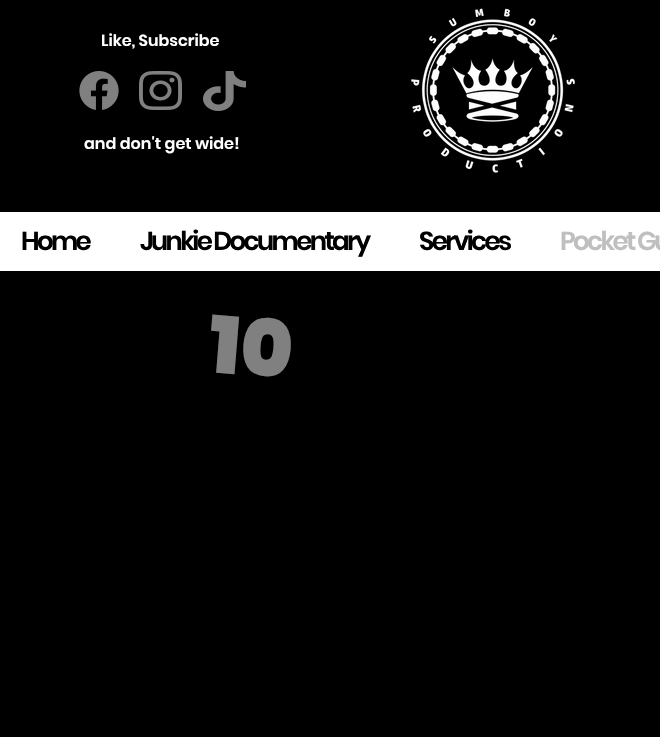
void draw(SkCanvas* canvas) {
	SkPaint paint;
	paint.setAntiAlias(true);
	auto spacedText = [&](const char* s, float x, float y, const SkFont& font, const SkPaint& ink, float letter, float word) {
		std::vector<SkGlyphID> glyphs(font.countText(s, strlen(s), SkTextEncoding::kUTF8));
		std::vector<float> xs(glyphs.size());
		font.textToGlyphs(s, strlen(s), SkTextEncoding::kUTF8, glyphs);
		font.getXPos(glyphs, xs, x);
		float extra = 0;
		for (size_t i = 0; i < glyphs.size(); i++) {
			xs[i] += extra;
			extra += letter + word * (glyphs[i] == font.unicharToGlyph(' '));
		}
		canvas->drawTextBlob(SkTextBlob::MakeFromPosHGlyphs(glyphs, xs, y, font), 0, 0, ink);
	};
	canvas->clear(0xff000000);
	SkFont f1(fontMgr->matchFamilyStyle("Poppins", SkFontStyle(600, SkFontStyle::kNormal_Width, SkFontStyle::kUpright_Slant)), 16);
	f1.setSubpixel(true);
	paint.setColor(0xffffffff);
	canvas->drawString("Like, Subscribe", 101, 46, f1, paint);
	canvas->drawImageRect(SkImages::DeferredFromEncodedData(SkData::MakeFromFileName("img1.png")), SkRect::MakeXYWH(79, 71, 40, 39), SkSamplingOptions());
	canvas->drawImageRect(SkImages::DeferredFromEncodedData(SkData::MakeFromFileName("img2.png")), SkRect::MakeXYWH(139, 71, 43, 39), SkSamplingOptions());
	canvas->drawImageRect(SkImages::DeferredFromEncodedData(SkData::MakeFromFileName("img3.png")), SkRect::MakeXYWH(203, 71, 43, 40), SkSamplingOptions());
	canvas->drawString("and don't get wide!", 84, 149, f1, paint);
	canvas->drawImageRect(SkImages::DeferredFromEncodedData(SkData::MakeFromFileName("img4.png")), SkRect::MakeXYWH(411, 8, 164, 165), SkSamplingOptions());
	canvas->drawRect(SkRect::MakeXYWH(0, 212, 660, 59), paint);
	SkFont f2(fontMgr->matchFamilyStyle("Poppins", SkFontStyle(600, SkFontStyle::kNormal_Width, SkFontStyle::kUpright_Slant)), 26);
	f2.setSubpixel(true);
	paint.setColor(0xff000000);
	spacedText("Home", 21, 250, f2, paint, -2.6, 0);
	spacedText("Junkie Documentary", 140, 250, f2, paint, -2.6, 0);
	spacedText("Services", 419, 250, f2, paint, -2.6, 0);
	paint.setColor(0xffbfbfbf);
	spacedText("Pocket Gu", 560, 250, f2, paint, -2.6, 0);
	SkFont f3(fontMgr->matchFamilyStyle("Poppins", SkFontStyle(900, SkFontStyle::kNormal_Width, SkFontStyle::kUpright_Slant)), 79);
	f3.setSubpixel(true);
	paint.setColor(0xff808080);
	canvas->save();
	canvas->rotate(4.6, 207, 372);
	canvas->drawString("10", 207, 372, f3, paint);
	canvas->restore();
}
